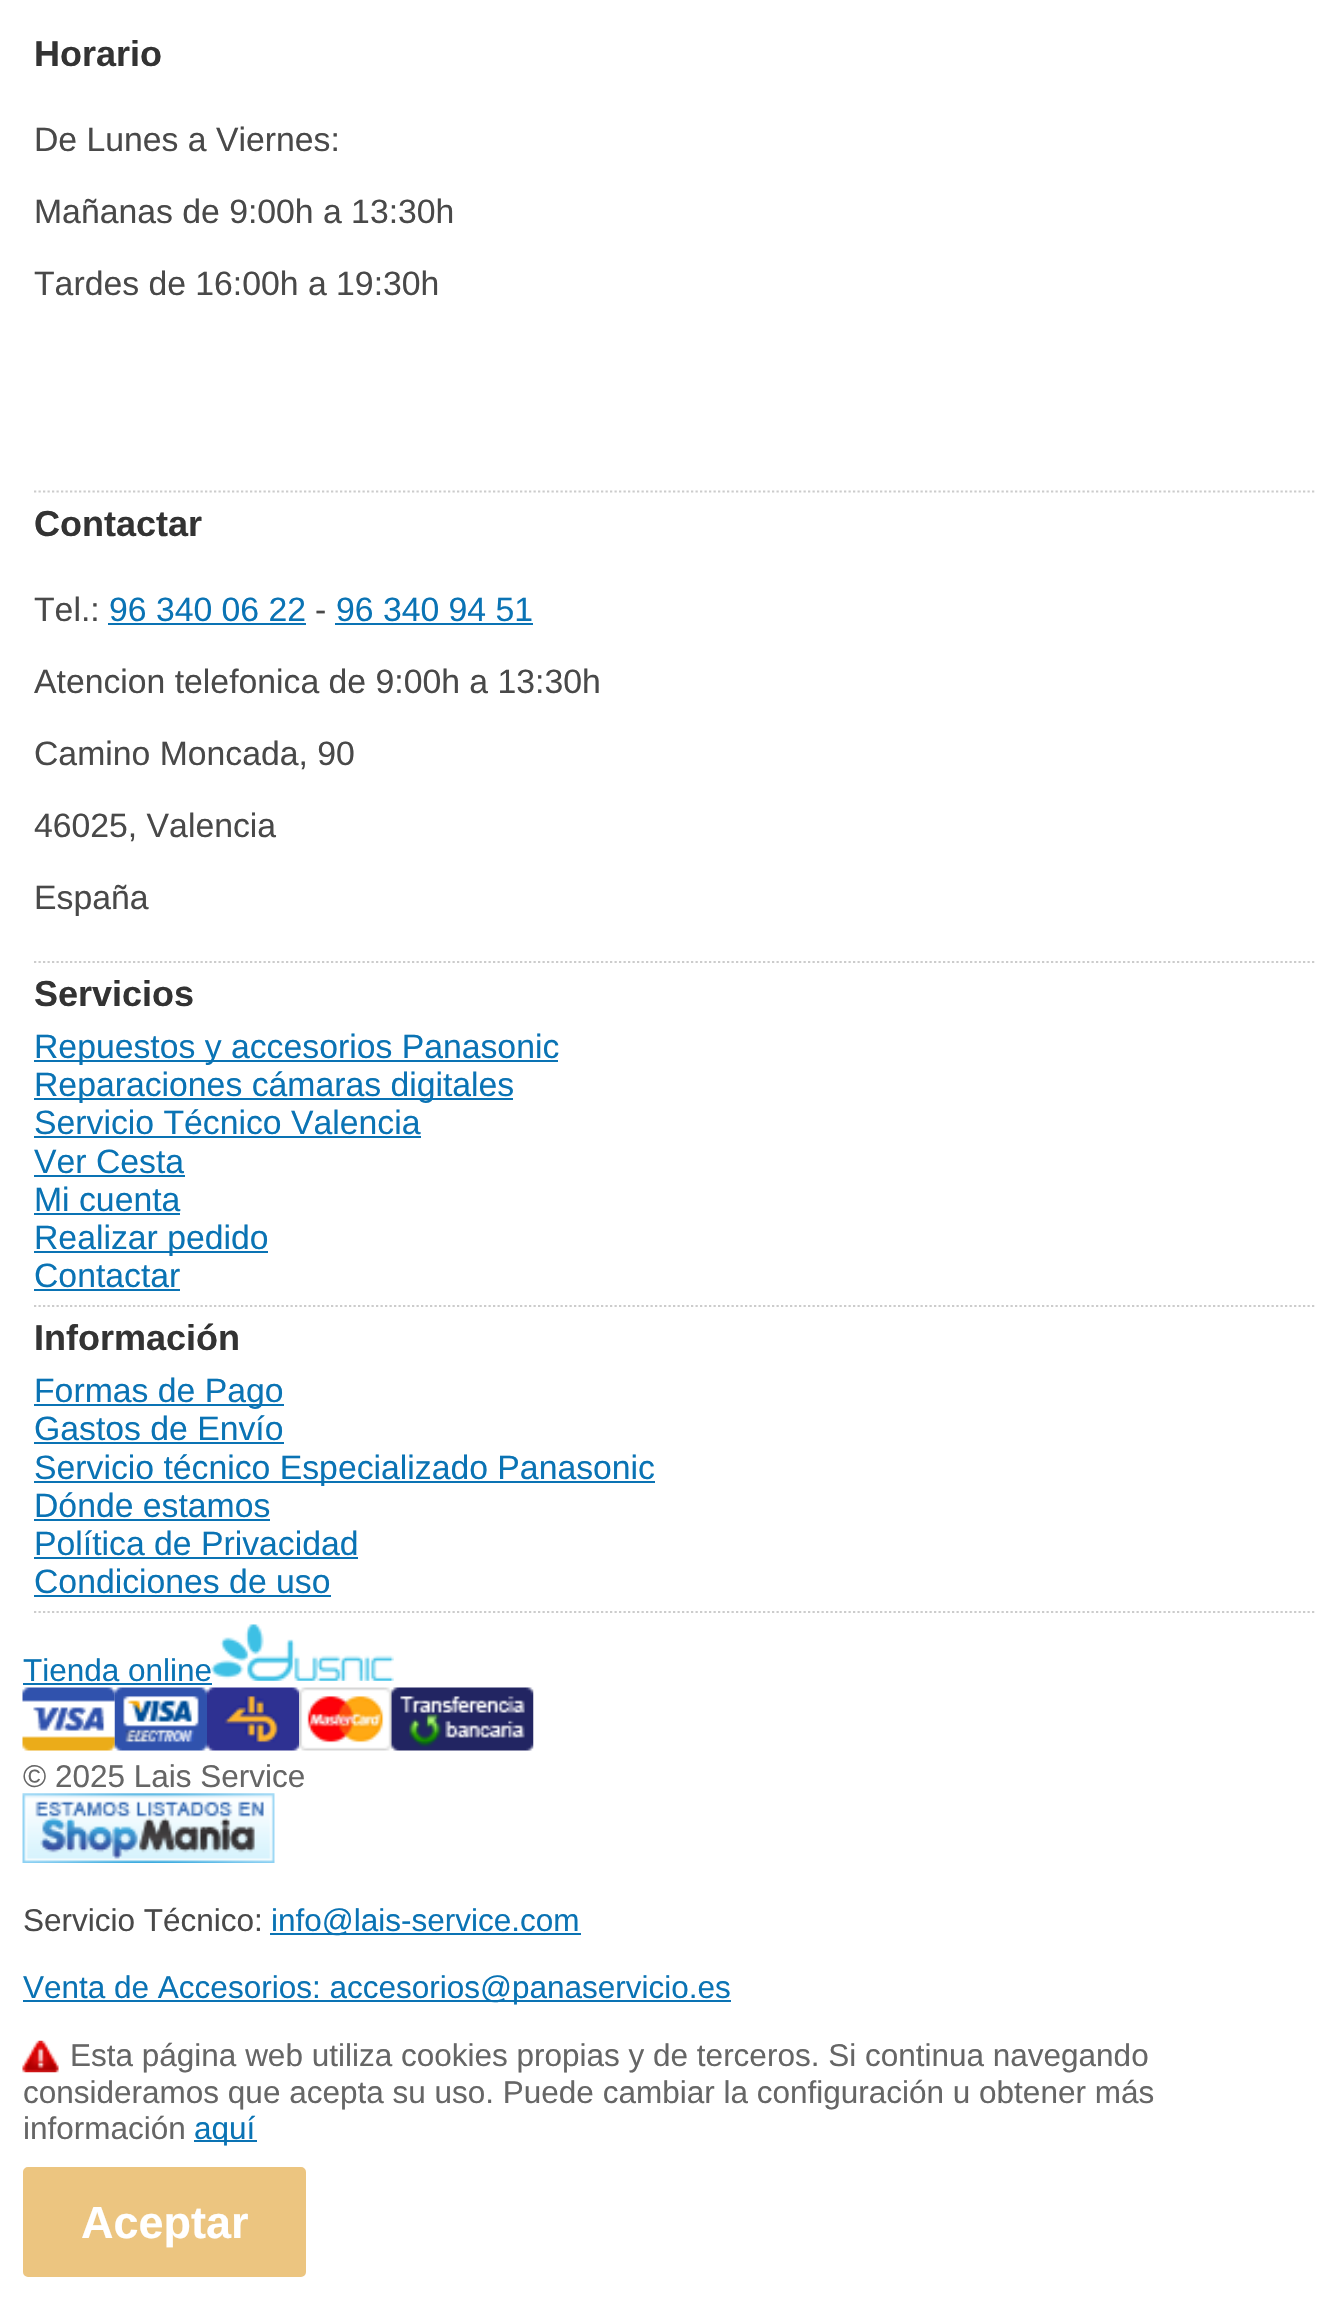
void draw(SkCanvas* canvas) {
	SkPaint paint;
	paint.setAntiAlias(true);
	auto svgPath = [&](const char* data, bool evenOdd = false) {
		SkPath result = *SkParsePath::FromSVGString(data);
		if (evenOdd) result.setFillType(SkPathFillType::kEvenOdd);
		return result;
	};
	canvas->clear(0xffffffff);
	paint.setStroke(true);
	paint.setStrokeWidth(2.2);
	paint.setColor(0xffcccccc);
	paint.setPathEffect(SkDashPathEffect::Make({{2.25f, 2.25f}}, 0));
	canvas->drawPath(svgPath("M34 491.5H1316"), paint);
	paint.setPathEffect(nullptr);
	SkFont f1(fontMgr->matchFamilyStyle("Liberation Sans", SkFontStyle::Bold()), 36);
	f1.setSubpixel(true);
	paint.setStroke(false);
	paint.setColor(0xff333333);
	canvas->drawString("Horario", 34, 66, f1, paint);
	SkFont f2(fontMgr->matchFamilyStyle("Liberation Sans", SkFontStyle::Normal()), 33.75);
	f2.setSubpixel(true);
	paint.setColor(0xff494949);
	canvas->drawString("De Lunes a Viernes:", 34, 151, f2, paint);
	canvas->drawString("Mañanas de 9:00h a 13:30h", 34, 223, f2, paint);
	canvas->drawString("Tardes de 16:00h a 19:30h", 34, 295, f2, paint);
	paint.setStroke(true);
	paint.setColor(0xffcccccc);
	paint.setPathEffect(SkDashPathEffect::Make({{2.25f, 2.25f}}, 0));
	canvas->drawPath(svgPath("M34 962H1316"), paint);
	paint.setPathEffect(nullptr);
	paint.setStroke(false);
	paint.setColor(0xff333333);
	canvas->drawString("Contactar", 34, 536, f1, paint);
	paint.setColor(0xff494949);
	canvas->drawString("Tel.:", 34, 621, f2, paint);
	paint.setColor(0xff0a73b4);
	canvas->drawString("96 340 06 22", 109, 621, f2, paint);
	canvas->drawRect(SkRect::MakeXYWH(108, 623, 198, 2), paint);
	paint.setColor(0xff494949);
	canvas->drawString("-", 315, 621, f2, paint);
	paint.setColor(0xff0a73b4);
	canvas->drawString("96 340 94 51", 336, 621, f2, paint);
	canvas->drawRect(SkRect::MakeXYWH(335, 623, 198, 2), paint);
	paint.setColor(0xff494949);
	canvas->drawString("Atencion telefonica de 9:00h a 13:30h", 34, 693, f2, paint);
	canvas->drawString("Camino Moncada, 90", 34, 765, f2, paint);
	canvas->drawString("46025, Valencia", 34, 837, f2, paint);
	canvas->drawString("España", 34, 909, f2, paint);
	paint.setStroke(true);
	paint.setColor(0xffcccccc);
	paint.setPathEffect(SkDashPathEffect::Make({{2.25f, 2.25f}}, 0));
	canvas->drawPath(svgPath("M34 1306H1316"), paint);
	paint.setPathEffect(nullptr);
	paint.setStroke(false);
	paint.setColor(0xff333333);
	canvas->drawString("Servicios", 34, 1006, f1, paint);
	paint.setColor(0xff0a73b4);
	canvas->drawRect(SkRect::MakeXYWH(34, 1060, 524, 2), paint);
	canvas->drawString("Repuestos y accesorios Panasonic", 34, 1058, f2, paint);
	canvas->drawRect(SkRect::MakeXYWH(34, 1098, 479, 2), paint);
	canvas->drawString("Reparaciones cámaras digitales", 34, 1096, f2, paint);
	canvas->drawString("Servicio Técnico Valencia", 34, 1134, f2, paint);
	canvas->drawRect(SkRect::MakeXYWH(34, 1136, 387, 2), paint);
	canvas->drawString("Ver Cesta", 34, 1173, f2, paint);
	canvas->drawRect(SkRect::MakeXYWH(34, 1175, 151, 2), paint);
	canvas->drawString("Mi cuenta", 34, 1211, f2, paint);
	canvas->drawRect(SkRect::MakeXYWH(34, 1213, 146, 2), paint);
	canvas->drawRect(SkRect::MakeXYWH(34, 1251, 234, 2), paint);
	canvas->drawString("Realizar pedido", 34, 1249, f2, paint);
	canvas->drawString("Contactar", 34, 1287, f2, paint);
	canvas->drawRect(SkRect::MakeXYWH(34, 1289, 146, 2), paint);
	paint.setStroke(true);
	paint.setColor(0xffcccccc);
	paint.setPathEffect(SkDashPathEffect::Make({{2.25f, 2.25f}}, 0));
	canvas->drawPath(svgPath("M34 1612H1316"), paint);
	paint.setPathEffect(nullptr);
	paint.setStroke(false);
	paint.setColor(0xff333333);
	canvas->drawString("Información", 34, 1350, f1, paint);
	paint.setColor(0xff0a73b4);
	canvas->drawRect(SkRect::MakeXYWH(34, 1404, 250, 2), paint);
	canvas->drawString("Formas de Pago", 34, 1402, f2, paint);
	canvas->drawString("Gastos de Envío", 34, 1440, f2, paint);
	canvas->drawRect(SkRect::MakeXYWH(34, 1442, 250, 2), paint);
	canvas->drawRect(SkRect::MakeXYWH(34, 1481, 621, 2), paint);
	canvas->drawString("Servicio técnico Especializado Panasonic", 34, 1479, f2, paint);
	canvas->drawString("Dónde estamos", 34, 1517, f2, paint);
	canvas->drawRect(SkRect::MakeXYWH(34, 1519, 236, 2), paint);
	canvas->drawString("Política de Privacidad", 34, 1555, f2, paint);
	canvas->drawRect(SkRect::MakeXYWH(34, 1557, 324, 2), paint);
	canvas->drawString("Condiciones de uso", 34, 1593, f2, paint);
	canvas->drawRect(SkRect::MakeXYWH(34, 1595, 297, 2), paint);
	SkFont f3(fontMgr->matchFamilyStyle("Liberation Sans", SkFontStyle::Normal()), 31.5);
	f3.setSubpixel(true);
	canvas->drawString("Tienda online", 23, 1681, f3, paint);
	canvas->drawRect(SkRect::MakeXYWH(23, 1683, 189, 2), paint);
	canvas->drawImageRect(SkImages::DeferredFromEncodedData(SkData::MakeFromFileName("img1.png")), SkRect::MakeXYWH(211, 1624, 183, 57), SkSamplingOptions());
	canvas->drawImageRect(SkImages::DeferredFromEncodedData(SkData::MakeFromFileName("img2.png")), SkRect::MakeXYWH(22, 1687, 93, 64), SkSamplingOptions());
	canvas->drawImageRect(SkImages::DeferredFromEncodedData(SkData::MakeFromFileName("img3.png")), SkRect::MakeXYWH(114, 1687, 93, 64), SkSamplingOptions());
	canvas->drawImageRect(SkImages::DeferredFromEncodedData(SkData::MakeFromFileName("img4.png")), SkRect::MakeXYWH(207, 1687, 93, 64), SkSamplingOptions());
	canvas->drawImageRect(SkImages::DeferredFromEncodedData(SkData::MakeFromFileName("img5.png")), SkRect::MakeXYWH(299, 1687, 93, 64), SkSamplingOptions());
	canvas->drawImageRect(SkImages::DeferredFromEncodedData(SkData::MakeFromFileName("img6.png")), SkRect::MakeXYWH(391, 1687, 143, 64), SkSamplingOptions());
	paint.setColor(0xff666666);
	canvas->drawString("© 2025 Lais Service", 23, 1787, f3, paint);
	canvas->drawImageRect(SkImages::DeferredFromEncodedData(SkData::MakeFromFileName("img7.png")), SkRect::MakeXYWH(22, 1793, 253, 70), SkSamplingOptions());
	paint.setColor(0xff494949);
	canvas->drawString("Servicio Técnico:", 23, 1931, f3, paint);
	paint.setColor(0xff0a73b4);
	canvas->drawRect(SkRect::MakeXYWH(270, 1933, 311, 2), paint);
	canvas->drawString("info@lais-service.com", 271, 1931, f3, paint);
	canvas->drawRect(SkRect::MakeXYWH(23, 2000, 708, 2), paint);
	canvas->drawString("Venta de Accesorios: accesorios@panaservicio.es", 23, 1998, f3, paint);
	canvas->drawImageRect(SkImages::DeferredFromEncodedData(SkData::MakeFromFileName("img8.png")), SkRect::MakeXYWH(22, 2040, 37, 33), SkSamplingOptions());
	paint.setColor(0xff666666);
	canvas->drawString("Esta página web utiliza cookies propias y de terceros. Si continua navegando", 70, 2066, f3, paint);
	canvas->drawString("consideramos que acepta su uso. Puede cambiar la configuración u obtener más", 23, 2103, f3, paint);
	canvas->drawString("información", 23, 2139, f3, paint);
	paint.setColor(0xff0a73b4);
	canvas->drawRect(SkRect::MakeXYWH(194, 2140, 63, 2), paint);
	canvas->drawString("aquí", 194, 2139, f3, paint);
	paint.setColor(0xffecc580);
	canvas->drawRoundRect(SkRect::MakeXYWH(24, 2168, 281, 108), 4, 4, paint);
	paint.setStroke(true);
	paint.setStrokeWidth(2);
	canvas->drawRoundRect(SkRect::MakeXYWH(24, 2168, 281, 108), 4, 4, paint);
	SkFont f4(fontMgr->matchFamilyStyle("Liberation Sans", SkFontStyle::Bold()), 45);
	f4.setSubpixel(true);
	paint.setStroke(false);
	paint.setColor(0xffffffff);
	canvas->drawString("Aceptar", 81, 2238, f4, paint);
}
